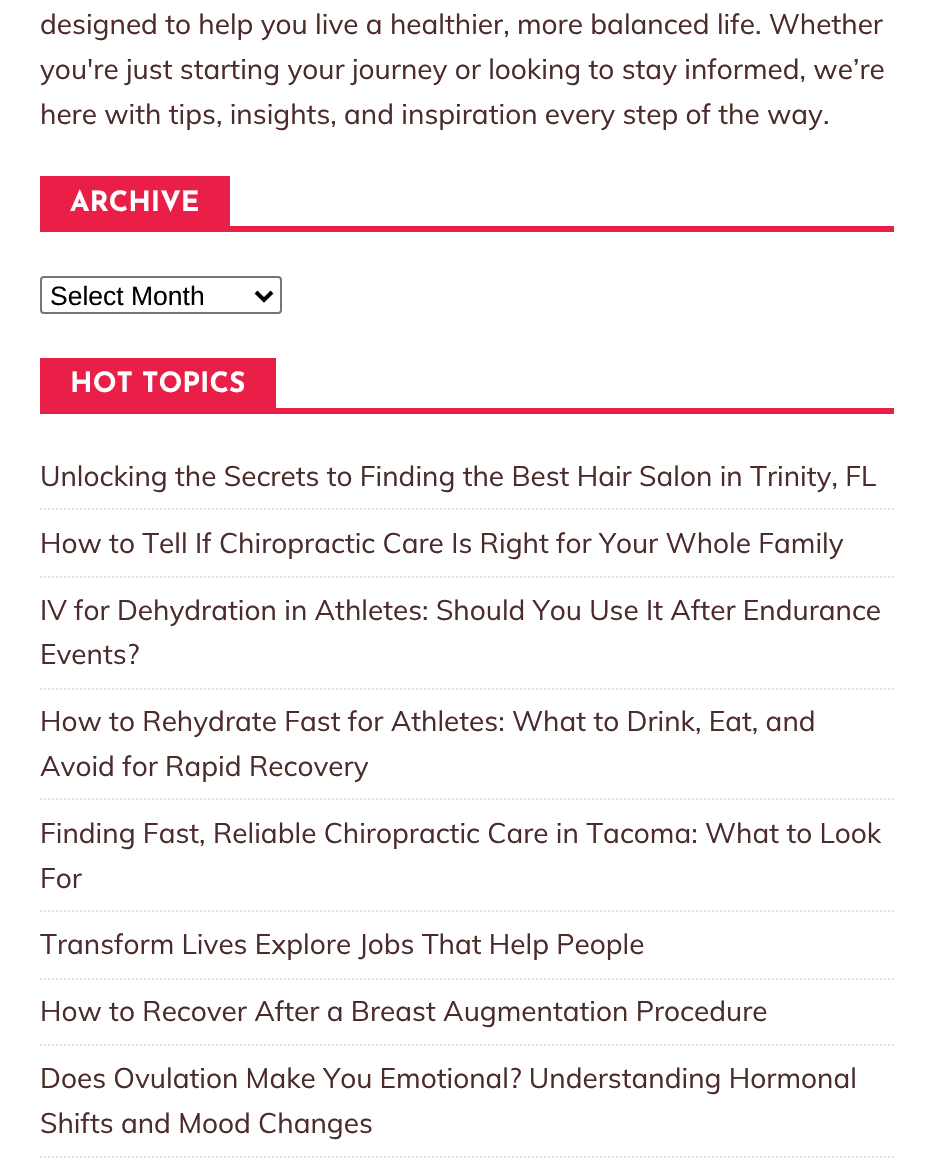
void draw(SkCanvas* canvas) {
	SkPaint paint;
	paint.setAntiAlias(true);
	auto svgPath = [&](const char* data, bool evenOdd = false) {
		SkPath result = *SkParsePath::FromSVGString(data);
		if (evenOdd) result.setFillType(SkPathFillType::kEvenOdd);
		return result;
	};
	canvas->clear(0xffffffff);
	SkFont f1(fontMgr->matchFamilyStyle("Muli", SkFontStyle::Normal()), 28);
	f1.setSubpixel(true);
	paint.setColor(0xff4c2b2b);
	canvas->drawString("designed to help you live a healthier, more balanced life. Whether", 40, 34, f1, paint);
	canvas->drawString("you're just starting your journey or looking to stay informed, we’re", 40, 79, f1, paint);
	canvas->drawString("here with tips, insights, and inspiration every step of the way.", 40, 124, f1, paint);
	paint.setColor(0xffe91f48);
	canvas->drawRect(SkRect::MakeXYWH(40, 226, 854, 6), paint);
	canvas->drawRect(SkRect::MakeXYWH(40, 176, 190, 50), paint);
	SkFont f2(fontMgr->matchFamilyStyle("Josefin Sans", SkFontStyle::Bold()), 28);
	f2.setSubpixel(true);
	paint.setColor(0xffffffff);
	canvas->drawString("ARCHIVE", 70, 211, f2, paint);
	paint.setStroke(true);
	paint.setStrokeWidth(2);
	paint.setColor(0xff767676);
	canvas->drawRoundRect(SkRect::MakeXYWH(41, 277, 240, 36), 3, 3, paint);
	paint.setStrokeWidth(4);
	paint.setColor(0xff000000);
	canvas->drawPath(svgPath("M256 292L264 300L272 292"), paint);
	SkFont f3(fontMgr->matchFamilyStyle("Liberation Sans", SkFontStyle::Normal()), 26.5);
	f3.setSubpixel(true);
	paint.setStroke(false);
	canvas->drawString("Select Month", 50, 305, f3, paint);
	paint.setColor(0xffe91f48);
	canvas->drawRect(SkRect::MakeXYWH(40, 408, 854, 6), paint);
	canvas->drawRect(SkRect::MakeXYWH(40, 358, 236, 50), paint);
	paint.setColor(0xffffffff);
	canvas->drawString("HOT TOPICS", 70, 392, f2, paint);
	paint.setStroke(true);
	paint.setStrokeWidth(2);
	paint.setColor(0xffe5e5e5);
	paint.setPathEffect(SkDashPathEffect::Make({{2, 2}}, 0));
	canvas->drawPath(svgPath("M40 509H894"), paint);
	paint.setPathEffect(nullptr);
	paint.setStroke(false);
	paint.setColor(0xff4c2b2b);
	canvas->drawString("Unlocking the Secrets to Finding the Best Hair Salon in Trinity, FL", 40, 486, f1, paint);
	paint.setStroke(true);
	paint.setColor(0xffe5e5e5);
	paint.setPathEffect(SkDashPathEffect::Make({{2, 2}}, 0));
	canvas->drawPath(svgPath("M40 577H894"), paint);
	paint.setPathEffect(nullptr);
	paint.setStroke(false);
	paint.setColor(0xff4c2b2b);
	canvas->drawString("How to Tell If Chiropractic Care Is Right for Your Whole Family", 40, 553, f1, paint);
	paint.setStroke(true);
	paint.setColor(0xffe5e5e5);
	paint.setPathEffect(SkDashPathEffect::Make({{2, 2}}, 0));
	canvas->drawPath(svgPath("M40 689H894"), paint);
	paint.setPathEffect(nullptr);
	paint.setStroke(false);
	paint.setColor(0xff4c2b2b);
	canvas->drawString("IV for Dehydration in Athletes: Should You Use It After Endurance", 40, 620, f1, paint);
	canvas->drawString("Events?", 40, 664, f1, paint);
	paint.setStroke(true);
	paint.setColor(0xffe5e5e5);
	paint.setPathEffect(SkDashPathEffect::Make({{2, 2}}, 0));
	canvas->drawPath(svgPath("M40 799H894"), paint);
	paint.setPathEffect(nullptr);
	paint.setStroke(false);
	paint.setColor(0xff4c2b2b);
	canvas->drawString("How to Rehydrate Fast for Athletes: What to Drink, Eat, and", 40, 731, f1, paint);
	canvas->drawString("Avoid for Rapid Recovery", 40, 776, f1, paint);
	paint.setStroke(true);
	paint.setColor(0xffe5e5e5);
	paint.setPathEffect(SkDashPathEffect::Make({{2, 2}}, 0));
	canvas->drawPath(svgPath("M40 911H894"), paint);
	paint.setPathEffect(nullptr);
	paint.setStroke(false);
	paint.setColor(0xff4c2b2b);
	canvas->drawString("Finding Fast, Reliable Chiropractic Care in Tacoma: What to Look", 40, 843, f1, paint);
	canvas->drawString("For", 40, 888, f1, paint);
	paint.setStroke(true);
	paint.setColor(0xffe5e5e5);
	paint.setPathEffect(SkDashPathEffect::Make({{2, 2}}, 0));
	canvas->drawPath(svgPath("M40 979H894"), paint);
	paint.setPathEffect(nullptr);
	paint.setStroke(false);
	paint.setColor(0xff4c2b2b);
	canvas->drawString("Transform Lives Explore Jobs That Help People", 40, 954, f1, paint);
	paint.setStroke(true);
	paint.setColor(0xffe5e5e5);
	paint.setPathEffect(SkDashPathEffect::Make({{2, 2}}, 0));
	canvas->drawPath(svgPath("M40 1045H894"), paint);
	paint.setPathEffect(nullptr);
	paint.setStroke(false);
	paint.setColor(0xff4c2b2b);
	canvas->drawString("How to Recover After a Breast Augmentation Procedure", 40, 1021, f1, paint);
	paint.setStroke(true);
	paint.setColor(0xffe5e5e5);
	paint.setPathEffect(SkDashPathEffect::Make({{2, 2}}, 0));
	canvas->drawPath(svgPath("M40 1157H894"), paint);
	paint.setPathEffect(nullptr);
	paint.setStroke(false);
	paint.setColor(0xff4c2b2b);
	canvas->drawString("Does Ovulation Make You Emotional? Understanding Hormonal", 40, 1088, f1, paint);
	canvas->drawString("Shifts and Mood Changes", 40, 1133, f1, paint);
}
